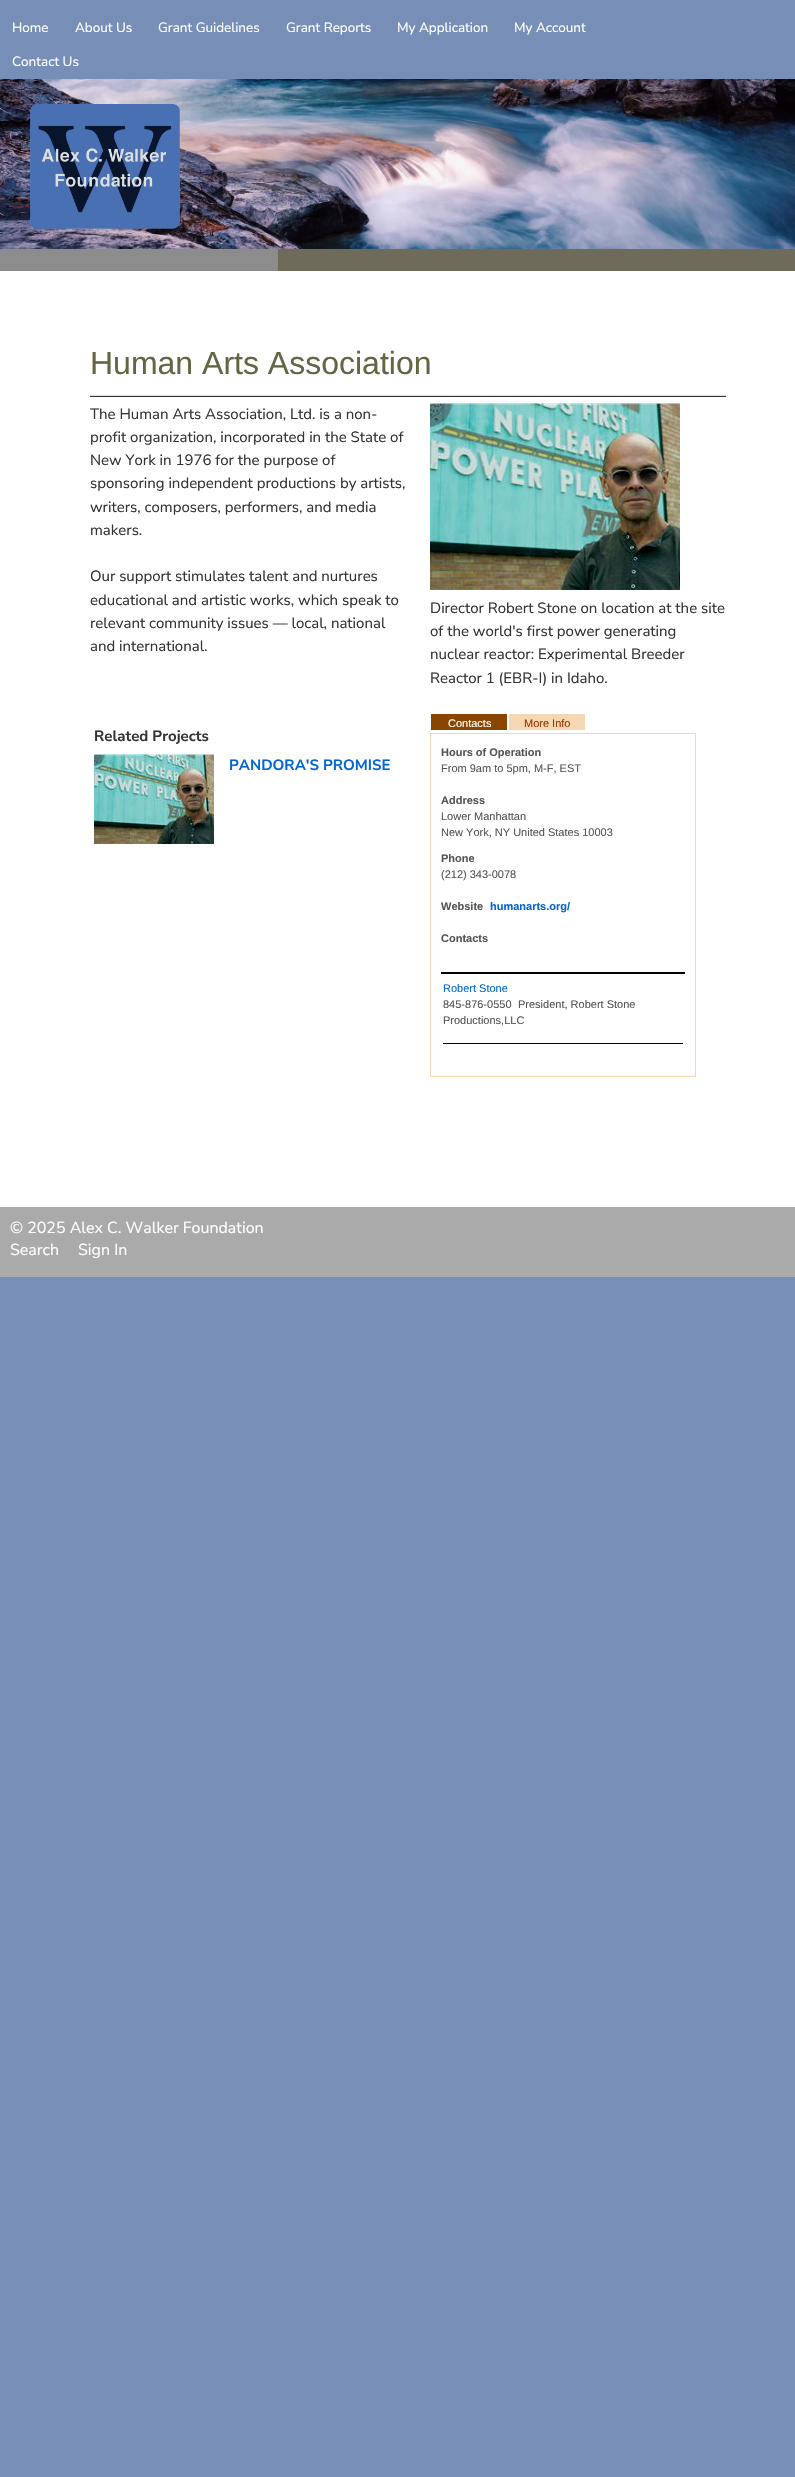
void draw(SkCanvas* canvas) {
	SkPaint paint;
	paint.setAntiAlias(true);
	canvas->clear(0xff778fb6);
	paint.setColor(0xffffffff);
	canvas->drawRect(SkRect::MakeXYWH(0, 271, 795, 936), paint);
	SkFont f1(fontMgr->matchFamilyStyle("Nunito Sans", SkFontStyle::Normal()), 13.5);
	f1.setSubpixel(true);
	canvas->drawString("Home", 12, 32, f1, paint);
	canvas->drawString("About Us", 75, 32, f1, paint);
	canvas->drawString("Grant Guidelines", 158, 32, f1, paint);
	canvas->drawString("Grant Reports", 286, 32, f1, paint);
	canvas->drawString("My Application", 397, 32, f1, paint);
	canvas->drawString("My Account", 514, 32, f1, paint);
	canvas->drawString("Contact Us", 12, 66, f1, paint);
	canvas->drawImageRect(SkImages::DeferredFromEncodedData(SkData::MakeFromFileName("img1.png")), SkRect::MakeXYWH(0, 79, 795, 170), SkSamplingOptions());
	canvas->drawImageRect(SkImages::DeferredFromEncodedData(SkData::MakeFromFileName("img2.png")), SkRect::MakeXYWH(30, 104, 150, 125), SkSamplingOptions());
	paint.setColor(0xff8c8c8c);
	canvas->drawRect(SkRect::MakeXYWH(0, 249, 278, 22), paint);
	paint.setColor(0xff6f6b5b);
	canvas->drawRect(SkRect::MakeXYWH(278, 249, 517, 22), paint);
	SkFont f2(fontMgr->matchFamilyStyle("Liberation Sans", SkFontStyle::Normal()), 32);
	f2.setSubpixel(true);
	paint.setColor(0xff656544);
	canvas->drawString("Human Arts Association", 90, 374, f2, paint);
	paint.setColor(0xffdddddd);
	canvas->drawRect(SkRect::MakeXYWH(90, 395, 636, 1), paint);
	paint.setColor(0xff333333);
	canvas->drawRect(SkRect::MakeXYWH(90, 396, 636, 1), paint);
	SkFont f3(fontMgr->matchFamilyStyle("Nunito Sans", SkFontStyle::Normal()), 15);
	f3.setSubpixel(true);
	canvas->drawString("The Human Arts Association, Ltd. is a non-", 90, 419, f3, paint);
	canvas->drawString("profit organization, incorporated in the State of", 90, 442, f3, paint);
	canvas->drawString("New York in 1976 for the purpose of", 90, 465, f3, paint);
	canvas->drawString("sponsoring independent productions by artists,", 90, 488, f3, paint);
	canvas->drawString("writers, composers, performers, and media", 90, 512, f3, paint);
	canvas->drawString("makers.", 90, 535, f3, paint);
	canvas->drawString("Our support stimulates talent and nurtures", 90, 581, f3, paint);
	canvas->drawString("educational and artistic works, which speak to", 90, 605, f3, paint);
	canvas->drawString("relevant community issues — local, national", 90, 628, f3, paint);
	canvas->drawString("and international.", 90, 651, f3, paint);
	SkFont f4(fontMgr->matchFamilyStyle("Nunito Sans", SkFontStyle::Bold()), 15);
	f4.setSubpixel(true);
	canvas->drawString("Related Projects", 94, 741, f4, paint);
	canvas->drawImageRect(SkImages::DeferredFromEncodedData(SkData::MakeFromFileName("img3.png")), SkRect::MakeXYWH(94, 754, 120, 90), SkSamplingOptions());
	paint.setColor(0xff0366d6);
	canvas->drawString("PANDORA'S PROMISE", 229, 770, f4, paint);
	canvas->drawImageRect(SkImages::DeferredFromEncodedData(SkData::MakeFromFileName("img4.png")), SkRect::MakeXYWH(430, 403, 250, 187), SkSamplingOptions());
	paint.setColor(0xff333333);
	canvas->drawString("Director Robert Stone on location at the site", 430, 613, f3, paint);
	canvas->drawString("of the world's first power generating", 430, 636, f3, paint);
	canvas->drawString("nuclear reactor: Experimental Breeder", 430, 659, f3, paint);
	canvas->drawString("Reactor 1 (EBR-I) in Idaho.", 430, 683, f3, paint);
	paint.setColor(0xff8a4500);
	canvas->drawRect(SkRect::MakeXYWH(431, 714, 76, 16), paint);
	SkFont f5(fontMgr->matchFamilyStyle("Liberation Sans", SkFontStyle::Normal()), 11);
	f5.setSubpixel(true);
	paint.setColor(0xffffffff);
	canvas->drawString("Contacts", 448, 727, f5, paint);
	paint.setColor(0xfff5d7b4);
	canvas->drawRect(SkRect::MakeXYWH(509, 714, 76, 16), paint);
	paint.setColor(0xff993300);
	canvas->drawString("More Info", 524, 727, f5, paint);
	paint.setStroke(true);
	paint.setStrokeWidth(1);
	paint.setColor(0xfff5d7b4);
	canvas->drawRect(SkRect::MakeXYWH(430.5, 733.5, 265, 343), paint);
	SkFont f6(fontMgr->matchFamilyStyle("Liberation Sans", SkFontStyle::Bold()), 11);
	f6.setSubpixel(true);
	paint.setStroke(false);
	paint.setColor(0xff555555);
	canvas->drawString("Hours of Operation", 441, 756, f6, paint);
	canvas->drawString("From 9am to 5pm, M-F, EST", 441, 772, f5, paint);
	canvas->drawString("Address", 441, 804, f6, paint);
	canvas->drawString("Lower Manhattan", 441, 820, f5, paint);
	canvas->drawString("New York, NY United States 10003", 441, 836, f5, paint);
	canvas->drawString("Phone", 441, 862, f6, paint);
	canvas->drawString("(212) 343-0078", 441, 878, f5, paint);
	canvas->drawString("Website", 441, 910, f6, paint);
	paint.setColor(0xff0366d6);
	canvas->drawString("humanarts.org/", 490, 910, f6, paint);
	paint.setColor(0xff555555);
	canvas->drawString("Contacts", 441, 942, f6, paint);
	paint.setColor(0xff000000);
	canvas->drawRect(SkRect::MakeXYWH(441, 972, 244, 2), paint);
	paint.setColor(0xff0366d6);
	canvas->drawString("Robert Stone", 443, 992, f5, paint);
	paint.setColor(0xff555555);
	canvas->drawString("845-876-0550", 443, 1008, f5, paint);
	canvas->drawString("President, Robert Stone", 518, 1008, f5, paint);
	canvas->drawString("Productions,LLC", 443, 1024, f5, paint);
	paint.setColor(0xff000000);
	canvas->drawRect(SkRect::MakeXYWH(443, 1043, 240, 1), paint);
	paint.setColor(0xffaaaaaa);
	canvas->drawRect(SkRect::MakeXYWH(0, 1207, 795, 70), paint);
	SkFont f7(fontMgr->matchFamilyStyle("Nunito Sans", SkFontStyle::Normal()), 16);
	f7.setSubpixel(true);
	paint.setColor(0xffffffff);
	canvas->drawString("© 2025 Alex C. Walker Foundation", 10, 1233, f7, paint);
	canvas->drawString("Search", 10, 1255, f7, paint);
	canvas->drawString("Sign In", 78, 1255, f7, paint);
}
